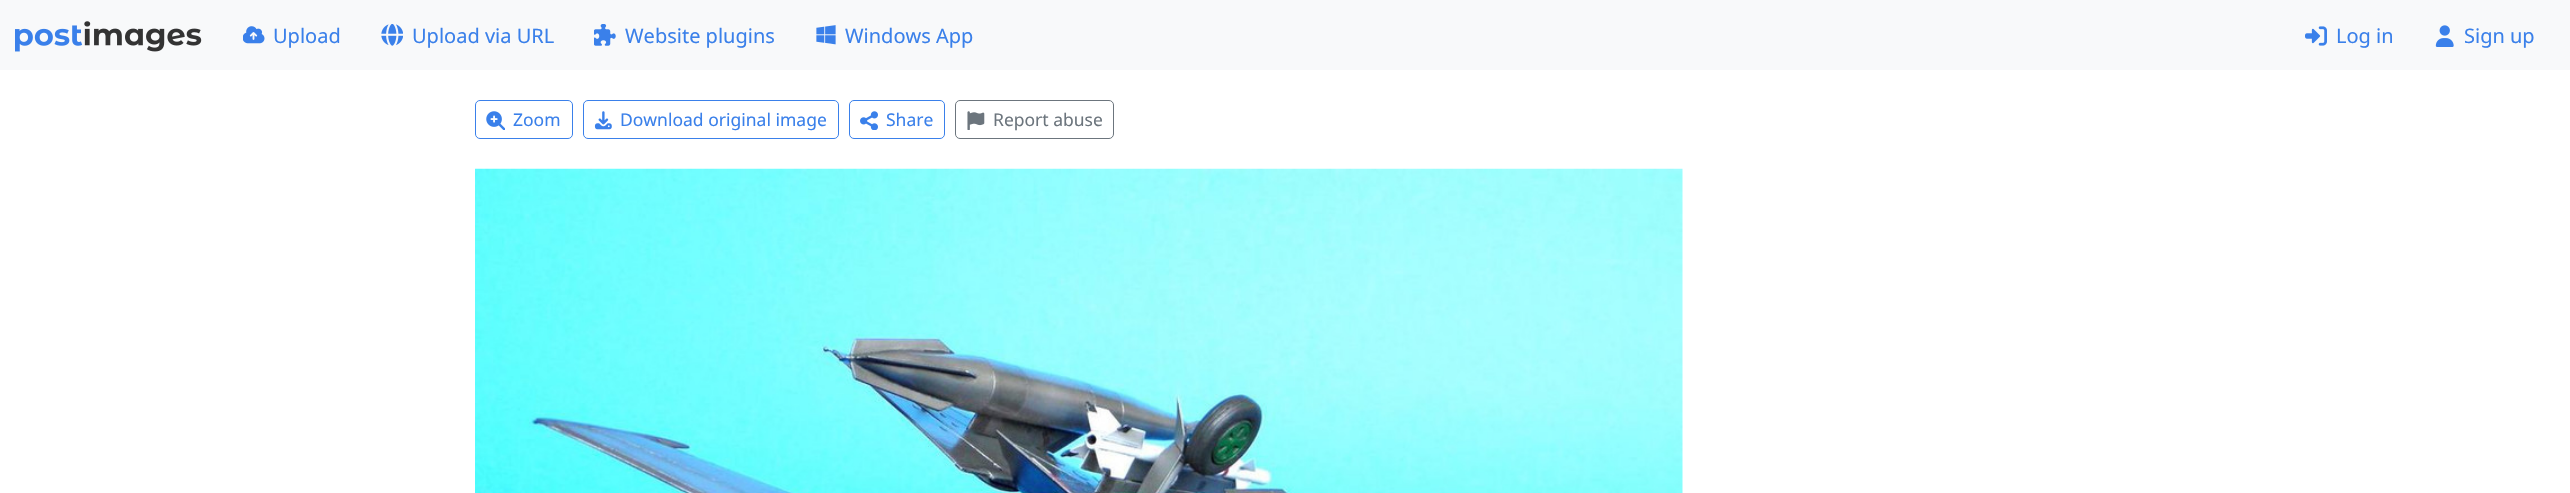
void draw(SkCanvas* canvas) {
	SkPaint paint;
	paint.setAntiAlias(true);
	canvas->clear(0xffffffff);
	paint.setColor(0xfff8f9fa);
	canvas->drawRect(SkRect::MakeXYWH(0, 0, 2570, 70), paint);
	canvas->drawImageRect(SkImages::DeferredFromEncodedData(SkData::MakeFromFileName("img1.png")), SkRect::MakeXYWH(15, 21, 187, 31), SkSamplingOptions());
	canvas->drawImageRect(SkImages::DeferredFromEncodedData(SkData::MakeFromFileName("img2.png")), SkRect::MakeXYWH(243, 26, 22, 18), SkSamplingOptions());
	SkFont f1(fontMgr->matchFamilyStyle("Noto Sans", SkFontStyle::Normal()), 20);
	f1.setSubpixel(true);
	paint.setColor(0xff3a80ea);
	canvas->drawString("Upload", 273, 43, f1, paint);
	canvas->drawImageRect(SkImages::DeferredFromEncodedData(SkData::MakeFromFileName("img3.png")), SkRect::MakeXYWH(381, 24, 22, 22), SkSamplingOptions());
	canvas->drawString("Upload via URL", 412, 43, f1, paint);
	canvas->drawImageRect(SkImages::DeferredFromEncodedData(SkData::MakeFromFileName("img4.png")), SkRect::MakeXYWH(594, 24, 22, 22), SkSamplingOptions());
	canvas->drawString("Website plugins", 625, 43, f1, paint);
	canvas->drawImageRect(SkImages::DeferredFromEncodedData(SkData::MakeFromFileName("img5.png")), SkRect::MakeXYWH(816, 25, 20, 20), SkSamplingOptions());
	canvas->drawString("Windows App", 845, 43, f1, paint);
	canvas->drawImageRect(SkImages::DeferredFromEncodedData(SkData::MakeFromFileName("img6.png")), SkRect::MakeXYWH(2305, 26, 22, 20), SkSamplingOptions());
	canvas->drawString("Log in", 2336, 43, f1, paint);
	canvas->drawImageRect(SkImages::DeferredFromEncodedData(SkData::MakeFromFileName("img7.png")), SkRect::MakeXYWH(2435, 25, 19, 22), SkSamplingOptions());
	canvas->drawString("Sign up", 2464, 43, f1, paint);
	paint.setStroke(true);
	paint.setStrokeWidth(1);
	canvas->drawRoundRect(SkRect::MakeXYWH(475.5, 100.5, 97, 38), 4.5, 4.5, paint);
	canvas->drawImageRect(SkImages::DeferredFromEncodedData(SkData::MakeFromFileName("img8.png")), SkRect::MakeXYWH(486, 111, 19, 19), SkSamplingOptions());
	SkFont f2(fontMgr->matchFamilyStyle("Noto Sans", SkFontStyle::Normal()), 17.5);
	f2.setSubpixel(true);
	paint.setStroke(false);
	canvas->drawString("Zoom", 513, 126, f2, paint);
	paint.setStroke(true);
	canvas->drawRoundRect(SkRect::MakeXYWH(583.5, 100.5, 255, 38), 4.5, 4.5, paint);
	canvas->drawImageRect(SkImages::DeferredFromEncodedData(SkData::MakeFromFileName("img9.png")), SkRect::MakeXYWH(594, 111, 18, 19), SkSamplingOptions());
	paint.setStroke(false);
	canvas->drawString("Download original image", 620, 126, f2, paint);
	paint.setStroke(true);
	canvas->drawRoundRect(SkRect::MakeXYWH(849.5, 100.5, 95, 38), 4.5, 4.5, paint);
	canvas->drawImageRect(SkImages::DeferredFromEncodedData(SkData::MakeFromFileName("img10.png")), SkRect::MakeXYWH(860, 111, 18, 19), SkSamplingOptions());
	paint.setStroke(false);
	canvas->drawString("Share", 886, 126, f2, paint);
	paint.setStroke(true);
	paint.setColor(0xff6c757d);
	canvas->drawRoundRect(SkRect::MakeXYWH(955.5, 100.5, 158, 38), 4.5, 4.5, paint);
	canvas->drawImageRect(SkImages::DeferredFromEncodedData(SkData::MakeFromFileName("img11.png")), SkRect::MakeXYWH(967, 111, 18, 19), SkSamplingOptions());
	paint.setStroke(false);
	canvas->drawString("Report abuse", 993, 126, f2, paint);
	canvas->drawImageRect(SkImages::DeferredFromEncodedData(SkData::MakeFromFileName("img12.png")), SkRect::MakeXYWH(475, 168, 1208, 325), SkSamplingOptions());
}
